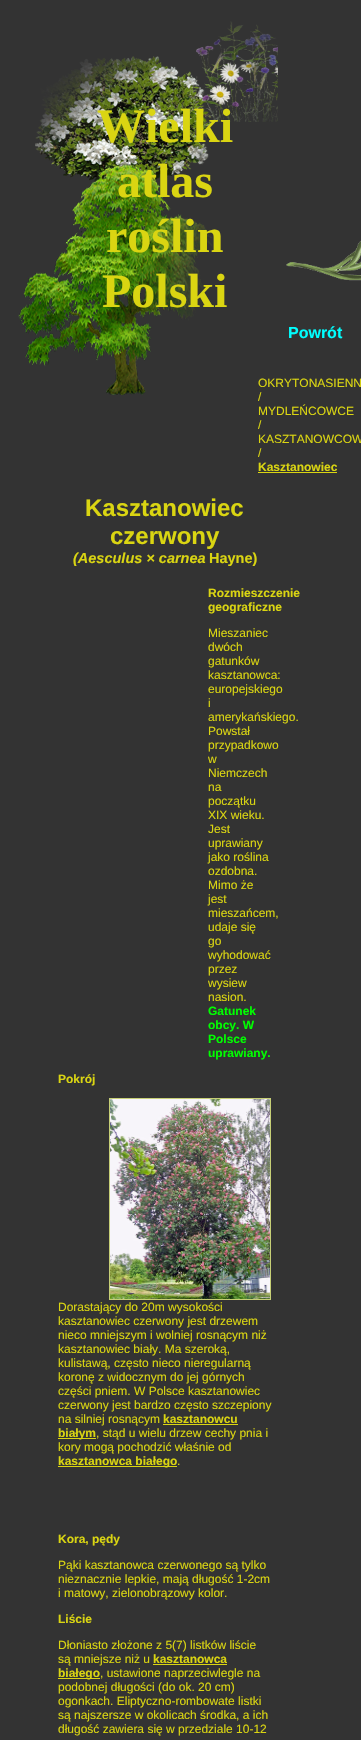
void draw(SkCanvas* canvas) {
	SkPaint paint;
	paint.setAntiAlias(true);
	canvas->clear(0xff333333);
	canvas->drawImageRect(SkImages::DeferredFromEncodedData(SkData::MakeFromFileName("img1.png")), SkRect::MakeXYWH(18, 21, 260, 374), SkSamplingOptions());
	SkFont f1(fontMgr->matchFamilyStyle("Liberation Serif", SkFontStyle::Bold()), 48);
	f1.setSubpixel(true);
	paint.setColor(0xffdad512);
	canvas->drawString("Wielki", 97, 142, f1, paint);
	canvas->drawString("atlas", 117, 197, f1, paint);
	canvas->drawString("roślin", 106, 252, f1, paint);
	canvas->drawString("Polski", 102, 307, f1, paint);
	SkFont f2(fontMgr->matchFamilyStyle("Liberation Sans", SkFontStyle::Normal()), 12);
	f2.setSubpixel(true);
	canvas->drawString("OKRYTONASIENN", 258, 387, f2, paint);
	canvas->drawString("/", 258, 401, f2, paint);
	canvas->drawString("MYDLEŃCOWCE", 258, 415, f2, paint);
	canvas->drawString("/", 258, 429, f2, paint);
	canvas->drawString("KASZTANOWCOW", 258, 443, f2, paint);
	canvas->drawString("/", 258, 457, f2, paint);
	SkFont f3(fontMgr->matchFamilyStyle("Liberation Sans", SkFontStyle::Bold()), 12);
	f3.setSubpixel(true);
	canvas->drawString("Kasztanowiec", 258, 471, f3, paint);
	canvas->drawRect(SkRect::MakeXYWH(258, 472, 79, 1), paint);
	SkFont f4(fontMgr->matchFamilyStyle("Liberation Sans", SkFontStyle::Bold()), 24);
	f4.setSubpixel(true);
	canvas->drawString("Kasztanowiec", 85, 516, f4, paint);
	canvas->drawString("czerwony", 110, 544, f4, paint);
	SkFont f5(fontMgr->matchFamilyStyle("Liberation Sans", SkFontStyle::BoldItalic()), 14.5);
	f5.setSubpixel(true);
	canvas->drawString("(Aesculus × carnea", 73, 563, f5, paint);
	SkFont f6(fontMgr->matchFamilyStyle("Liberation Sans", SkFontStyle::Bold()), 14.5);
	f6.setSubpixel(true);
	canvas->drawString("Hayne)", 209, 563, f6, paint);
	canvas->drawString("Rozmieszczenie", 208, 597, f3, paint);
	canvas->drawString("geograficzne", 208, 611, f3, paint);
	canvas->drawString("Mieszaniec", 208, 637, f2, paint);
	canvas->drawString("dwóch", 208, 651, f2, paint);
	canvas->drawString("gatunków", 208, 665, f2, paint);
	canvas->drawString("kasztanowca:", 208, 679, f2, paint);
	canvas->drawString("europejskiego", 208, 693, f2, paint);
	canvas->drawString("i", 208, 707, f2, paint);
	canvas->drawString("amerykańskiego.", 208, 721, f2, paint);
	canvas->drawString("Powstał", 208, 735, f2, paint);
	canvas->drawString("przypadkowo", 208, 749, f2, paint);
	canvas->drawString("w", 208, 763, f2, paint);
	canvas->drawString("Niemczech", 208, 777, f2, paint);
	canvas->drawString("na", 208, 791, f2, paint);
	canvas->drawString("początku", 208, 805, f2, paint);
	canvas->drawString("XIX wieku.", 208, 819, f2, paint);
	canvas->drawString("Jest", 208, 833, f2, paint);
	canvas->drawString("uprawiany", 208, 847, f2, paint);
	canvas->drawString("jako roślina", 208, 861, f2, paint);
	canvas->drawString("ozdobna.", 208, 875, f2, paint);
	canvas->drawString("Mimo że", 208, 889, f2, paint);
	canvas->drawString("jest", 208, 903, f2, paint);
	canvas->drawString("mieszańcem,", 208, 917, f2, paint);
	canvas->drawString("udaje się", 208, 931, f2, paint);
	canvas->drawString("go", 208, 945, f2, paint);
	canvas->drawString("wyhodować", 208, 959, f2, paint);
	canvas->drawString("przez", 208, 973, f2, paint);
	canvas->drawString("wysiew", 208, 987, f2, paint);
	canvas->drawString("nasion.", 208, 1001, f2, paint);
	paint.setColor(0xff00ff00);
	canvas->drawString("Gatunek", 208, 1015, f3, paint);
	canvas->drawString("obcy. W", 208, 1029, f3, paint);
	canvas->drawString("Polsce", 208, 1043, f3, paint);
	canvas->drawString("uprawiany.", 208, 1057, f3, paint);
	paint.setColor(0xffdad512);
	canvas->drawString("Pokrój", 58, 1083, f3, paint);
	paint.setStroke(true);
	paint.setStrokeWidth(1);
	paint.setColor(0xffc7cf76);
	canvas->drawRect(SkRect::MakeXYWH(109.5, 1098.5, 161, 201), paint);
	canvas->drawImageRect(SkImages::DeferredFromEncodedData(SkData::MakeFromFileName("img2.png")), SkRect::MakeXYWH(110, 1099, 160, 200), SkSamplingOptions());
	paint.setStroke(false);
	paint.setColor(0xffdad512);
	canvas->drawString("Dorastający do 20m wysokości", 58, 1311, f2, paint);
	canvas->drawString("kasztanowiec czerwony jest drzewem", 58, 1325, f2, paint);
	canvas->drawString("nieco mniejszym i wolniej rosnącym niż", 58, 1339, f2, paint);
	canvas->drawString("kasztanowiec biały. Ma szeroką,", 58, 1353, f2, paint);
	canvas->drawString("kulistawą, często nieco nieregularną", 58, 1367, f2, paint);
	canvas->drawString("koronę z widocznym do jej górnych", 58, 1381, f2, paint);
	canvas->drawString("części pniem. W Polsce kasztanowiec", 58, 1395, f2, paint);
	canvas->drawString("czerwony jest bardzo często szczepiony", 58, 1409, f2, paint);
	canvas->drawString("na silniej rosnącym", 58, 1423, f2, paint);
	canvas->drawString("kasztanowcu", 163, 1423, f3, paint);
	canvas->drawRect(SkRect::MakeXYWH(163, 1424, 75, 1), paint);
	canvas->drawRect(SkRect::MakeXYWH(58, 1438, 38, 1), paint);
	canvas->drawString("białym", 58, 1437, f3, paint);
	canvas->drawString(", stąd u wielu drzew cechy pnia i", 96, 1437, f2, paint);
	canvas->drawString("kory mogą pochodzić właśnie od", 58, 1451, f2, paint);
	canvas->drawRect(SkRect::MakeXYWH(58, 1466, 119, 1), paint);
	canvas->drawString("kasztanowca białego", 58, 1465, f3, paint);
	canvas->drawString(".", 177, 1465, f2, paint);
	canvas->drawString("Kora, pędy", 58, 1543, f3, paint);
	canvas->drawString("Pąki kasztanowca czerwonego są tylko", 58, 1569, f2, paint);
	canvas->drawString("nieznacznie lepkie, mają długość 1-2cm", 58, 1583, f2, paint);
	canvas->drawString("i matowy, zielonobrązowy kolor.", 58, 1597, f2, paint);
	canvas->drawString("Liście", 58, 1623, f3, paint);
	canvas->drawString("Dłoniasto złożone z 5(7) listków liście", 58, 1649, f2, paint);
	canvas->drawString("są mniejsze niż u", 58, 1663, f2, paint);
	canvas->drawString("kasztanowca", 153, 1663, f3, paint);
	canvas->drawRect(SkRect::MakeXYWH(153, 1664, 74, 1), paint);
	canvas->drawRect(SkRect::MakeXYWH(58, 1678, 42, 1), paint);
	canvas->drawString("białego", 58, 1677, f3, paint);
	canvas->drawString(", ustawione naprzeciwlegle na", 100, 1677, f2, paint);
	canvas->drawString("podobnej długości (do ok. 20 cm)", 58, 1691, f2, paint);
	canvas->drawString("ogonkach. Eliptyczno-rombowate listki", 58, 1705, f2, paint);
	canvas->drawString("są najszersze w okolicach środka, a ich", 58, 1719, f2, paint);
	canvas->drawString("długość zawiera się w przedziale 10-12", 58, 1733, f2, paint);
	canvas->drawImageRect(SkImages::DeferredFromEncodedData(SkData::MakeFromFileName("img3.png")), SkRect::MakeXYWH(286, 240, 75, 41), SkSamplingOptions());
	SkFont f7(fontMgr->matchFamilyStyle("Liberation Sans", SkFontStyle::Bold()), 16);
	f7.setSubpixel(true);
	paint.setColor(0xff00ffff);
	canvas->drawString("Powrót", 288, 338, f7, paint);
}
